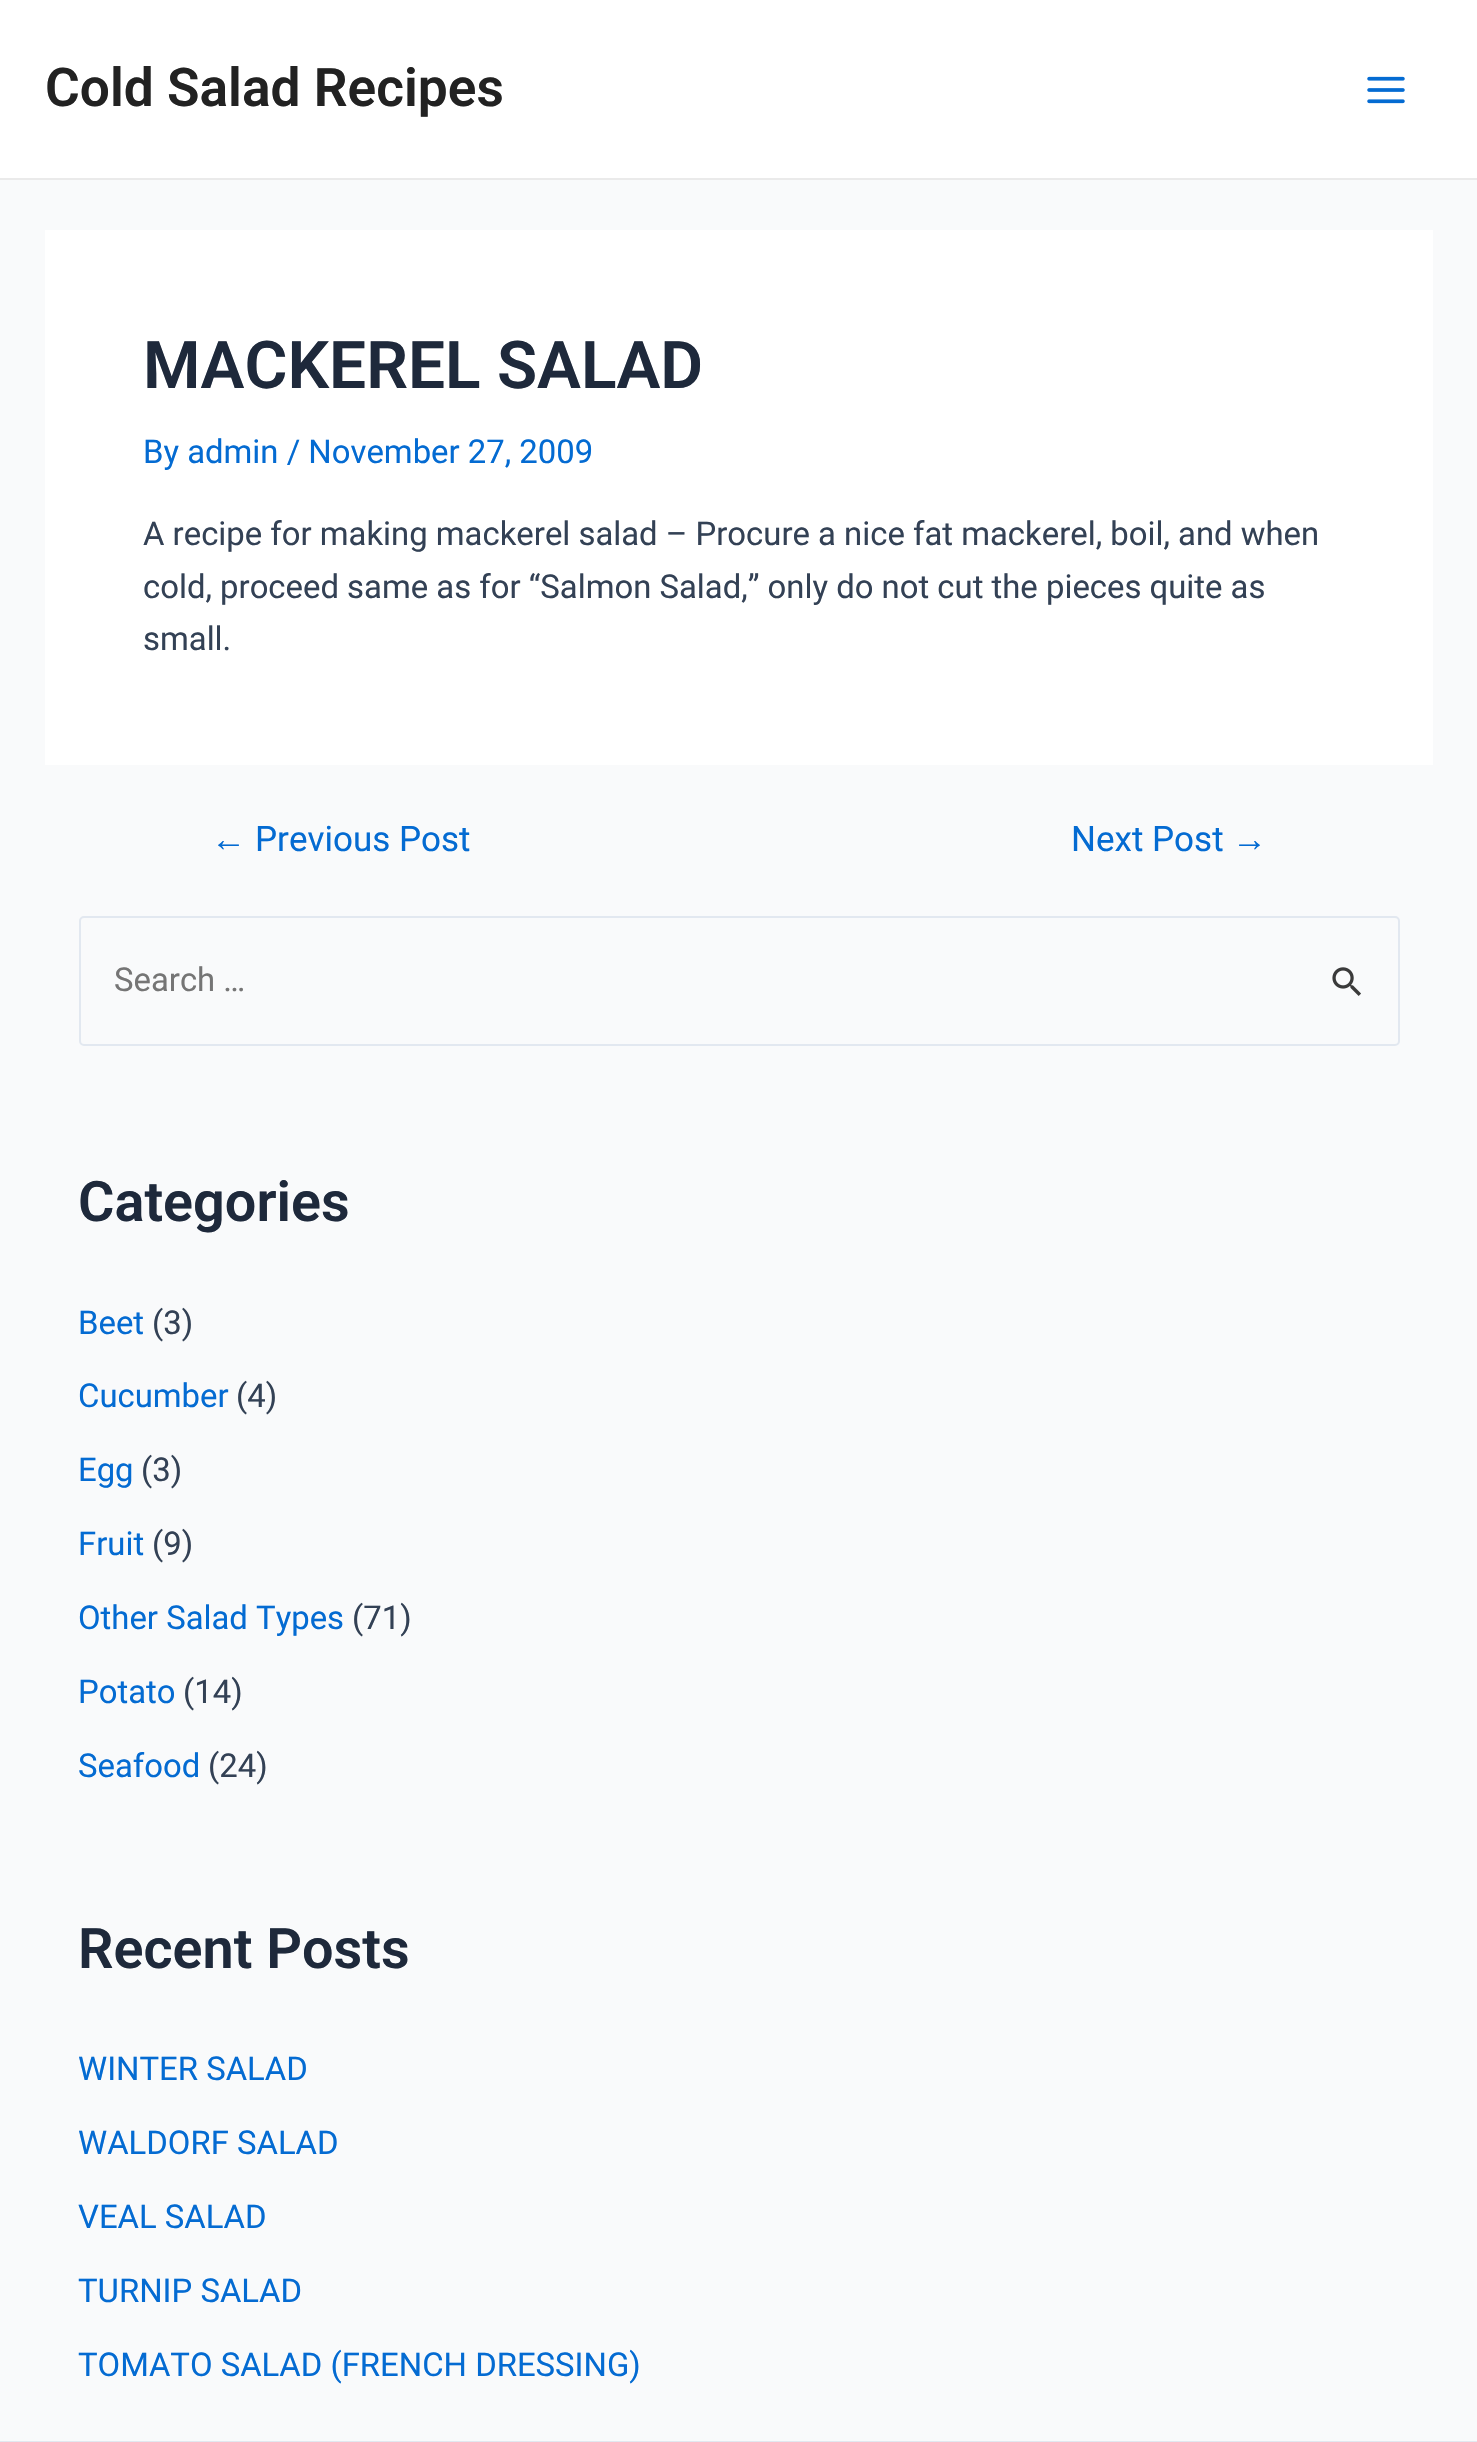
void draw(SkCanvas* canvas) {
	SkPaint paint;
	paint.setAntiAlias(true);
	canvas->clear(0xfff9fafb);
	paint.setColor(0xffffffff);
	canvas->drawRect(SkRect::MakeXYWH(0, 0, 1477, 178), paint);
	paint.setColor(0xffeaeaea);
	canvas->drawRect(SkRect::MakeXYWH(0, 178, 1477, 2), paint);
	SkFont f1(fontMgr->matchFamilyStyle("Roboto", SkFontStyle(600, SkFontStyle::kNormal_Width, SkFontStyle::kUpright_Slant)), 53.25);
	f1.setSubpixel(true);
	paint.setColor(0xff222222);
	canvas->drawString("Cold Salad Recipes", 45, 106, f1, paint);
	canvas->drawImageRect(SkImages::DeferredFromEncodedData(SkData::MakeFromFileName("img1.png")), SkRect::MakeXYWH(1367, 76, 38, 28), SkSamplingOptions());
	paint.setColor(0xffffffff);
	canvas->drawRect(SkRect::MakeXYWH(45, 230, 1388, 535), paint);
	SkFont f2(fontMgr->matchFamilyStyle("Roboto", SkFontStyle(600, SkFontStyle::kNormal_Width, SkFontStyle::kUpright_Slant)), 65.75);
	f2.setSubpixel(true);
	paint.setColor(0xff1e293b);
	canvas->drawString("MACKEREL SALAD", 143, 388, f2, paint);
	SkFont f3(fontMgr->matchFamilyStyle("Roboto", SkFontStyle::Normal()), 32.85);
	f3.setSubpixel(true);
	paint.setColor(0xff046bd2);
	canvas->drawString("By admin / November 27, 2009", 143, 463, f3, paint);
	paint.setColor(0xff334155);
	canvas->drawString("A recipe for making mackerel salad – Procure a nice fat mackerel, boil, and when", 143, 545, f3, paint);
	canvas->drawString("cold, proceed same as for “Salmon Salad,” only do not cut the pieces quite as", 143, 598, f3, paint);
	canvas->drawString("small.", 143, 650, f3, paint);
	SkFont f4(fontMgr->matchFamilyStyle("Liberation Sans", SkFontStyle::Normal()), 35);
	f4.setSubpixel(true);
	paint.setColor(0xff046bd2);
	canvas->drawString("←", 211, 851, f4, paint);
	SkFont f5(fontMgr->matchFamilyStyle("Roboto", SkFontStyle::Normal()), 35);
	f5.setSubpixel(true);
	canvas->drawString("Previous Post", 255, 851, f5, paint);
	canvas->drawString("Next Post", 1071, 851, f5, paint);
	canvas->drawString("→", 1232, 851, f4, paint);
	paint.setStroke(true);
	paint.setStrokeWidth(2);
	paint.setColor(0xffe2e8f0);
	canvas->drawRoundRect(SkRect::MakeXYWH(80, 917, 1319, 128), 4, 4, paint);
	paint.setStroke(false);
	paint.setColor(0xff757575);
	canvas->drawString("Search …", 114, 991, f3, paint);
	canvas->drawImageRect(SkImages::DeferredFromEncodedData(SkData::MakeFromFileName("img2.png")), SkRect::MakeXYWH(1332, 967, 29, 29), SkSamplingOptions());
	SkFont f6(fontMgr->matchFamilyStyle("Roboto", SkFontStyle(600, SkFontStyle::kNormal_Width, SkFontStyle::kUpright_Slant)), 55.75);
	f6.setSubpixel(true);
	paint.setColor(0xff1e293b);
	canvas->drawString("Categories", 78, 1221, f6, paint);
	paint.setColor(0xff046bd2);
	canvas->drawString("Beet", 78, 1334, f3, paint);
	paint.setColor(0xff334155);
	canvas->drawString("(3)", 152, 1334, f3, paint);
	paint.setColor(0xff046bd2);
	canvas->drawString("Cucumber", 78, 1407, f3, paint);
	paint.setColor(0xff334155);
	canvas->drawString("(4)", 236, 1407, f3, paint);
	paint.setColor(0xff046bd2);
	canvas->drawString("Egg", 78, 1481, f3, paint);
	paint.setColor(0xff334155);
	canvas->drawString("(3)", 141, 1481, f3, paint);
	paint.setColor(0xff046bd2);
	canvas->drawString("Fruit", 78, 1555, f3, paint);
	paint.setColor(0xff334155);
	canvas->drawString("(9)", 152, 1555, f3, paint);
	paint.setColor(0xff046bd2);
	canvas->drawString("Other Salad Types", 78, 1629, f3, paint);
	paint.setColor(0xff334155);
	canvas->drawString("(71)", 352, 1629, f3, paint);
	paint.setColor(0xff046bd2);
	canvas->drawString("Potato", 78, 1703, f3, paint);
	paint.setColor(0xff334155);
	canvas->drawString("(14)", 183, 1703, f3, paint);
	paint.setColor(0xff046bd2);
	canvas->drawString("Seafood", 78, 1777, f3, paint);
	paint.setColor(0xff334155);
	canvas->drawString("(24)", 208, 1777, f3, paint);
	paint.setColor(0xff1e293b);
	canvas->drawString("Recent Posts", 78, 1968, f6, paint);
	paint.setColor(0xff046bd2);
	canvas->drawString("WINTER SALAD", 78, 2080, f3, paint);
	canvas->drawString("WALDORF SALAD", 78, 2154, f3, paint);
	canvas->drawString("VEAL SALAD", 78, 2228, f3, paint);
	canvas->drawString("TURNIP SALAD", 78, 2302, f3, paint);
	canvas->drawString("TOMATO SALAD (FRENCH DRESSING)", 78, 2376, f3, paint);
	paint.setColor(0xffe2e8f0);
	canvas->drawRect(SkRect::MakeXYWH(0, 2441, 1477, 1), paint);
}
